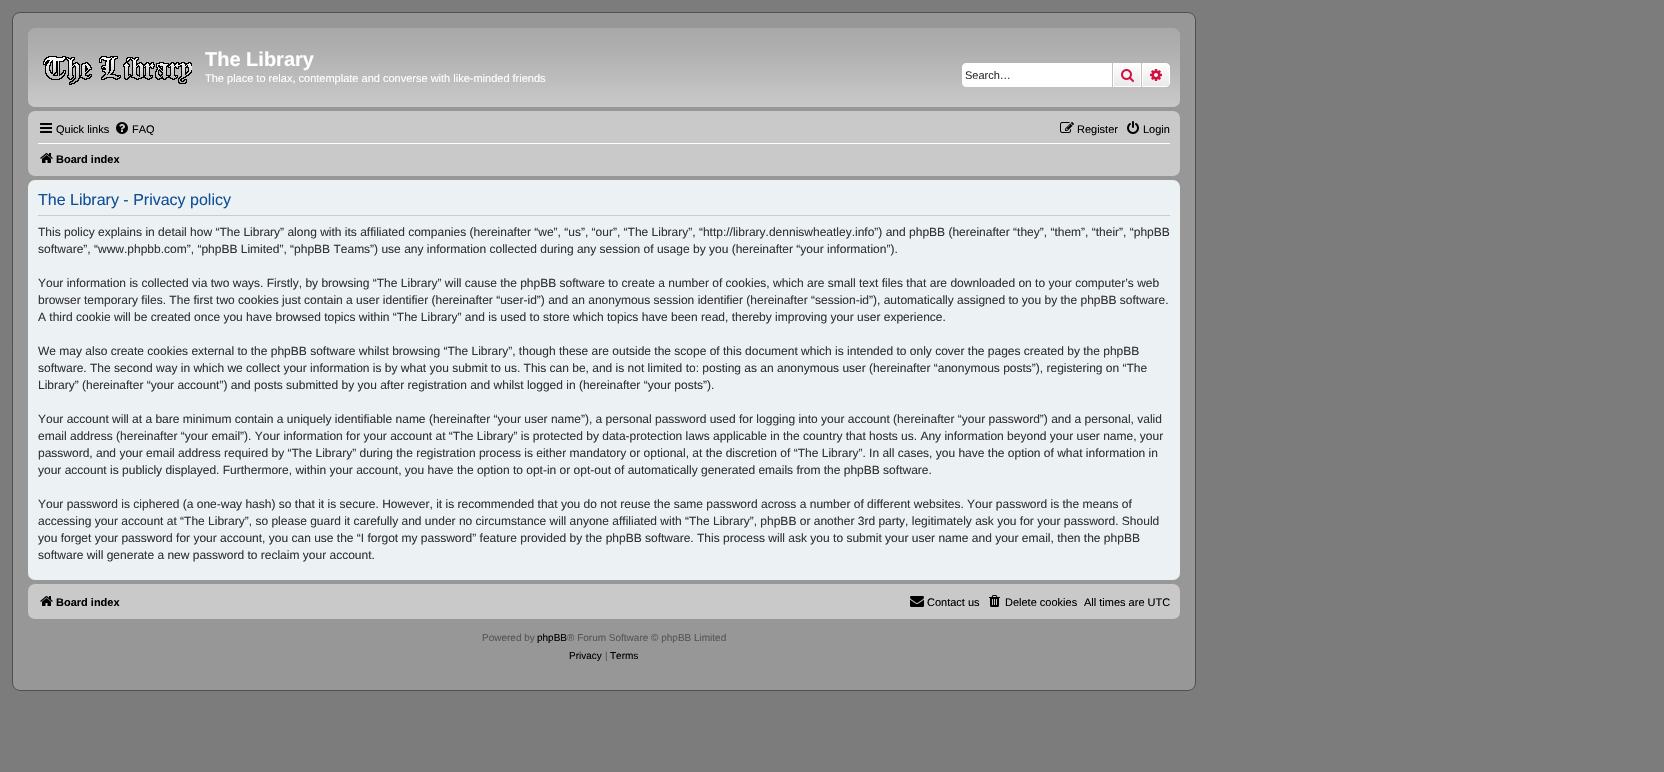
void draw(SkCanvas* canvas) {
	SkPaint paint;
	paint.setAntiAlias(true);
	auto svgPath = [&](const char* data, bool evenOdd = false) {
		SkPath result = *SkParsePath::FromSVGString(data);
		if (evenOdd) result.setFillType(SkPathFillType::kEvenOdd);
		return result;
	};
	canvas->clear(0xff7c7c7c);
	paint.setColor(0xff979797);
	canvas->drawRoundRect(SkRect::MakeXYWH(12.5, 12.5, 1183, 678), 7.5, 7.5, paint);
	paint.setStroke(true);
	paint.setStrokeWidth(1);
	paint.setColor(0xff505050);
	canvas->drawRoundRect(SkRect::MakeXYWH(12.5, 12.5, 1183, 678), 7.5, 7.5, paint);
	paint.setStroke(false);
	paint.setColor(0xffa9a9a9);
	canvas->drawRoundRect(SkRect::MakeXYWH(28, 28, 1152, 79), 7, 7, paint);
	canvas->drawImageRect(SkImages::DeferredFromEncodedData(SkData::MakeFromFileName("img1.png")), SkRect::MakeXYWH(28, 32, 1152, 75), SkSamplingOptions());
	canvas->drawImageRect(SkImages::DeferredFromEncodedData(SkData::MakeFromFileName("img2.png")), SkRect::MakeXYWH(43, 56, 149, 29), SkSamplingOptions());
	SkFont f1(fontMgr->matchFamilyStyle("Liberation Sans", SkFontStyle::Bold()), 20);
	f1.setSubpixel(true);
	paint.setColor(0xffffffff);
	canvas->drawString("The Library", 205, 66, f1, paint);
	SkFont f2(fontMgr->matchFamilyStyle("Liberation Sans", SkFontStyle::Normal()), 11);
	f2.setSubpixel(true);
	canvas->drawString("The place to relax, contemplate and converse with like-minded friends", 205, 82, f2, paint);
	canvas->drawPath(svgPath("M966 63H1112V87H966C964 87 962 85 962 83V67C962 65 964 63 966 63Z"), paint);
	paint.setColor(0xff333333);
	canvas->drawString("Search…", 965, 79, f2, paint);
	{
		const SkColor colors[] = {0xffffffff, 0xffe9e9e9};
		const float stops[] = {0, 1};
		const SkPoint ends[] = {{1127, 63}, {1127, 87}};
		paint.setShader(SkGradientShader::MakeLinear(ends, colors, stops, 2, SkTileMode::kClamp));
		paint.setAlpha(255);
	}
	canvas->drawRect(SkRect::MakeXYWH(1114, 64, 26, 22), paint);
	paint.setStroke(true);
	paint.setShader(nullptr);
	paint.setColor(0xffffffff);
	canvas->drawRect(SkRect::MakeXYWH(1113.5, 63.5, 27, 23), paint);
	paint.setStroke(false);
	paint.setColor(0xffc7c3bf);
	canvas->drawRect(SkRect::MakeXYWH(1141, 63, 1, 24), paint);
	canvas->drawRect(SkRect::MakeXYWH(1112, 63, 1, 24), paint);
	canvas->drawImageRect(SkImages::DeferredFromEncodedData(SkData::MakeFromFileName("img3.png")), SkRect::MakeXYWH(1121, 69, 13, 13), SkSamplingOptions());
	{
		const SkColor colors[] = {0xffffffff, 0xffe9e9e9};
		const float stops[] = {0, 1};
		const SkPoint ends[] = {{1156, 63}, {1156, 87}};
		paint.setShader(SkGradientShader::MakeLinear(ends, colors, stops, 2, SkTileMode::kClamp));
		paint.setAlpha(255);
	}
	canvas->drawPath(svgPath("M1142.5 63.5H1166C1168 63.5 1169.5 65 1169.5 67V83C1169.5 85 1168 86.5 1166 86.5H1142.5Z"), paint);
	paint.setStroke(true);
	paint.setShader(nullptr);
	paint.setColor(0xffffffff);
	canvas->drawPath(svgPath("M1142.5 63.5H1166C1168 63.5 1169.5 65 1169.5 67V83C1169.5 85 1168 86.5 1166 86.5H1142.5Z"), paint);
	canvas->drawImageRect(SkImages::DeferredFromEncodedData(SkData::MakeFromFileName("img4.png")), SkRect::MakeXYWH(1150, 69, 12, 12), SkSamplingOptions());
	paint.setStroke(false);
	paint.setColor(0xffc9c9c9);
	canvas->drawRoundRect(SkRect::MakeXYWH(28, 111, 1152, 65), 7, 7, paint);
	canvas->drawImageRect(SkImages::DeferredFromEncodedData(SkData::MakeFromFileName("img5.png")), SkRect::MakeXYWH(40, 123, 12, 10), SkSamplingOptions());
	paint.setColor(0xff000000);
	canvas->drawString("Quick links", 56, 133, f2, paint);
	canvas->drawImageRect(SkImages::DeferredFromEncodedData(SkData::MakeFromFileName("img6.png")), SkRect::MakeXYWH(116, 122, 12, 12), SkSamplingOptions());
	canvas->drawString("FAQ", 132, 133, f2, paint);
	canvas->drawImageRect(SkImages::DeferredFromEncodedData(SkData::MakeFromFileName("img7.png")), SkRect::MakeXYWH(1060, 122, 14, 11), SkSamplingOptions());
	canvas->drawString("Register", 1077, 133, f2, paint);
	canvas->drawImageRect(SkImages::DeferredFromEncodedData(SkData::MakeFromFileName("img8.png")), SkRect::MakeXYWH(1127, 121, 12, 13), SkSamplingOptions());
	canvas->drawString("Login", 1143, 133, f2, paint);
	paint.setColor(0xffffffff);
	canvas->drawRect(SkRect::MakeXYWH(38, 143, 1132, 1), paint);
	canvas->drawImageRect(SkImages::DeferredFromEncodedData(SkData::MakeFromFileName("img9.png")), SkRect::MakeXYWH(40, 153, 13, 10), SkSamplingOptions());
	SkFont f3(fontMgr->matchFamilyStyle("Liberation Sans", SkFontStyle::Bold()), 11);
	f3.setSubpixel(true);
	paint.setColor(0xff000000);
	canvas->drawString("Board index", 56, 163, f3, paint);
	paint.setColor(0xffecf1f3);
	canvas->drawRoundRect(SkRect::MakeXYWH(28, 180, 1152, 400), 7, 7, paint);
	paint.setColor(0xffcccccc);
	canvas->drawRect(SkRect::MakeXYWH(38, 215, 1132, 1), paint);
	SkFont f4(fontMgr->matchFamilyStyle("Liberation Sans", SkFontStyle::Normal()), 16);
	f4.setSubpixel(true);
	paint.setColor(0xff115098);
	canvas->drawString("The Library - Privacy policy", 38, 205, f4, paint);
	SkFont f5(fontMgr->matchFamilyStyle("Liberation Sans", SkFontStyle::Normal()), 12);
	f5.setSubpixel(true);
	paint.setColor(0xff333333);
	canvas->drawString("This policy explains in detail how “The Library” along with its affiliated companies (hereinafter “we”, “us”, “our”, “The Library”, “http://library.denniswheatley.info”) and phpBB (hereinafter “they”, “them”, “their”, “phpBB", 38, 236, f5, paint);
	canvas->drawString("software”, “www.phpbb.com”, “phpBB Limited”, “phpBB Teams”) use any information collected during any session of usage by you (hereinafter “your information”).", 38, 253, f5, paint);
	canvas->drawString("Your information is collected via two ways. Firstly, by browsing “The Library” will cause the phpBB software to create a number of cookies, which are small text files that are downloaded on to your computer’s web", 38, 287, f5, paint);
	canvas->drawString("browser temporary files. The first two cookies just contain a user identifier (hereinafter “user-id”) and an anonymous session identifier (hereinafter “session-id”), automatically assigned to you by the phpBB software.", 38, 304, f5, paint);
	canvas->drawString("A third cookie will be created once you have browsed topics within “The Library” and is used to store which topics have been read, thereby improving your user experience.", 38, 321, f5, paint);
	canvas->drawString("We may also create cookies external to the phpBB software whilst browsing “The Library”, though these are outside the scope of this document which is intended to only cover the pages created by the phpBB", 38, 355, f5, paint);
	canvas->drawString("software. The second way in which we collect your information is by what you submit to us. This can be, and is not limited to: posting as an anonymous user (hereinafter “anonymous posts”), registering on “The", 38, 372, f5, paint);
	canvas->drawString("Library” (hereinafter “your account”) and posts submitted by you after registration and whilst logged in (hereinafter “your posts”).", 38, 389, f5, paint);
	canvas->drawString("Your account will at a bare minimum contain a uniquely identifiable name (hereinafter “your user name”), a personal password used for logging into your account (hereinafter “your password”) and a personal, valid", 38, 423, f5, paint);
	canvas->drawString("email address (hereinafter “your email”). Your information for your account at “The Library” is protected by data-protection laws applicable in the country that hosts us. Any information beyond your user name, your", 38, 440, f5, paint);
	canvas->drawString("password, and your email address required by “The Library” during the registration process is either mandatory or optional, at the discretion of “The Library”. In all cases, you have the option of what information in", 38, 457, f5, paint);
	canvas->drawString("your account is publicly displayed. Furthermore, within your account, you have the option to opt-in or opt-out of automatically generated emails from the phpBB software.", 38, 474, f5, paint);
	canvas->drawString("Your password is ciphered (a one-way hash) so that it is secure. However, it is recommended that you do not reuse the same password across a number of different websites. Your password is the means of", 38, 508, f5, paint);
	canvas->drawString("accessing your account at “The Library”, so please guard it carefully and under no circumstance will anyone affiliated with “The Library”, phpBB or another 3rd party, legitimately ask you for your password. Should", 38, 525, f5, paint);
	canvas->drawString("you forget your password for your account, you can use the “I forgot my password” feature provided by the phpBB software. This process will ask you to submit your user name and your email, then the phpBB", 38, 542, f5, paint);
	canvas->drawString("software will generate a new password to reclaim your account.", 38, 559, f5, paint);
	paint.setColor(0xffc9c9c9);
	canvas->drawRoundRect(SkRect::MakeXYWH(28, 584, 1152, 35), 7, 7, paint);
	canvas->drawImageRect(SkImages::DeferredFromEncodedData(SkData::MakeFromFileName("img9.png")), SkRect::MakeXYWH(40, 596, 13, 10), SkSamplingOptions());
	paint.setColor(0xff000000);
	canvas->drawString("Board index", 56, 606, f3, paint);
	canvas->drawImageRect(SkImages::DeferredFromEncodedData(SkData::MakeFromFileName("img10.png")), SkRect::MakeXYWH(910, 596, 14, 11), SkSamplingOptions());
	canvas->drawString("Contact us", 927, 606, f2, paint);
	canvas->drawImageRect(SkImages::DeferredFromEncodedData(SkData::MakeFromFileName("img11.png")), SkRect::MakeXYWH(989, 595, 11, 12), SkSamplingOptions());
	canvas->drawString("Delete cookies", 1005, 606, f2, paint);
	canvas->drawString("All times are UTC", 1084, 606, f2, paint);
	SkFont f6(fontMgr->matchFamilyStyle("Liberation Sans", SkFontStyle::Normal()), 10);
	f6.setSubpixel(true);
	paint.setColor(0xff555555);
	canvas->drawString("Powered by", 482, 641, f6, paint);
	paint.setColor(0xff000000);
	canvas->drawString("phpBB", 537, 641, f6, paint);
	paint.setColor(0xff555555);
	canvas->drawString("® Forum Software © phpBB Limited", 567, 641, f6, paint);
	paint.setColor(0xff000000);
	canvas->drawString("Privacy", 569, 659, f6, paint);
	paint.setColor(0xff555555);
	canvas->drawString("|", 605, 659, f6, paint);
	paint.setColor(0xff000000);
	canvas->drawString("Terms", 610, 659, f6, paint);
}
